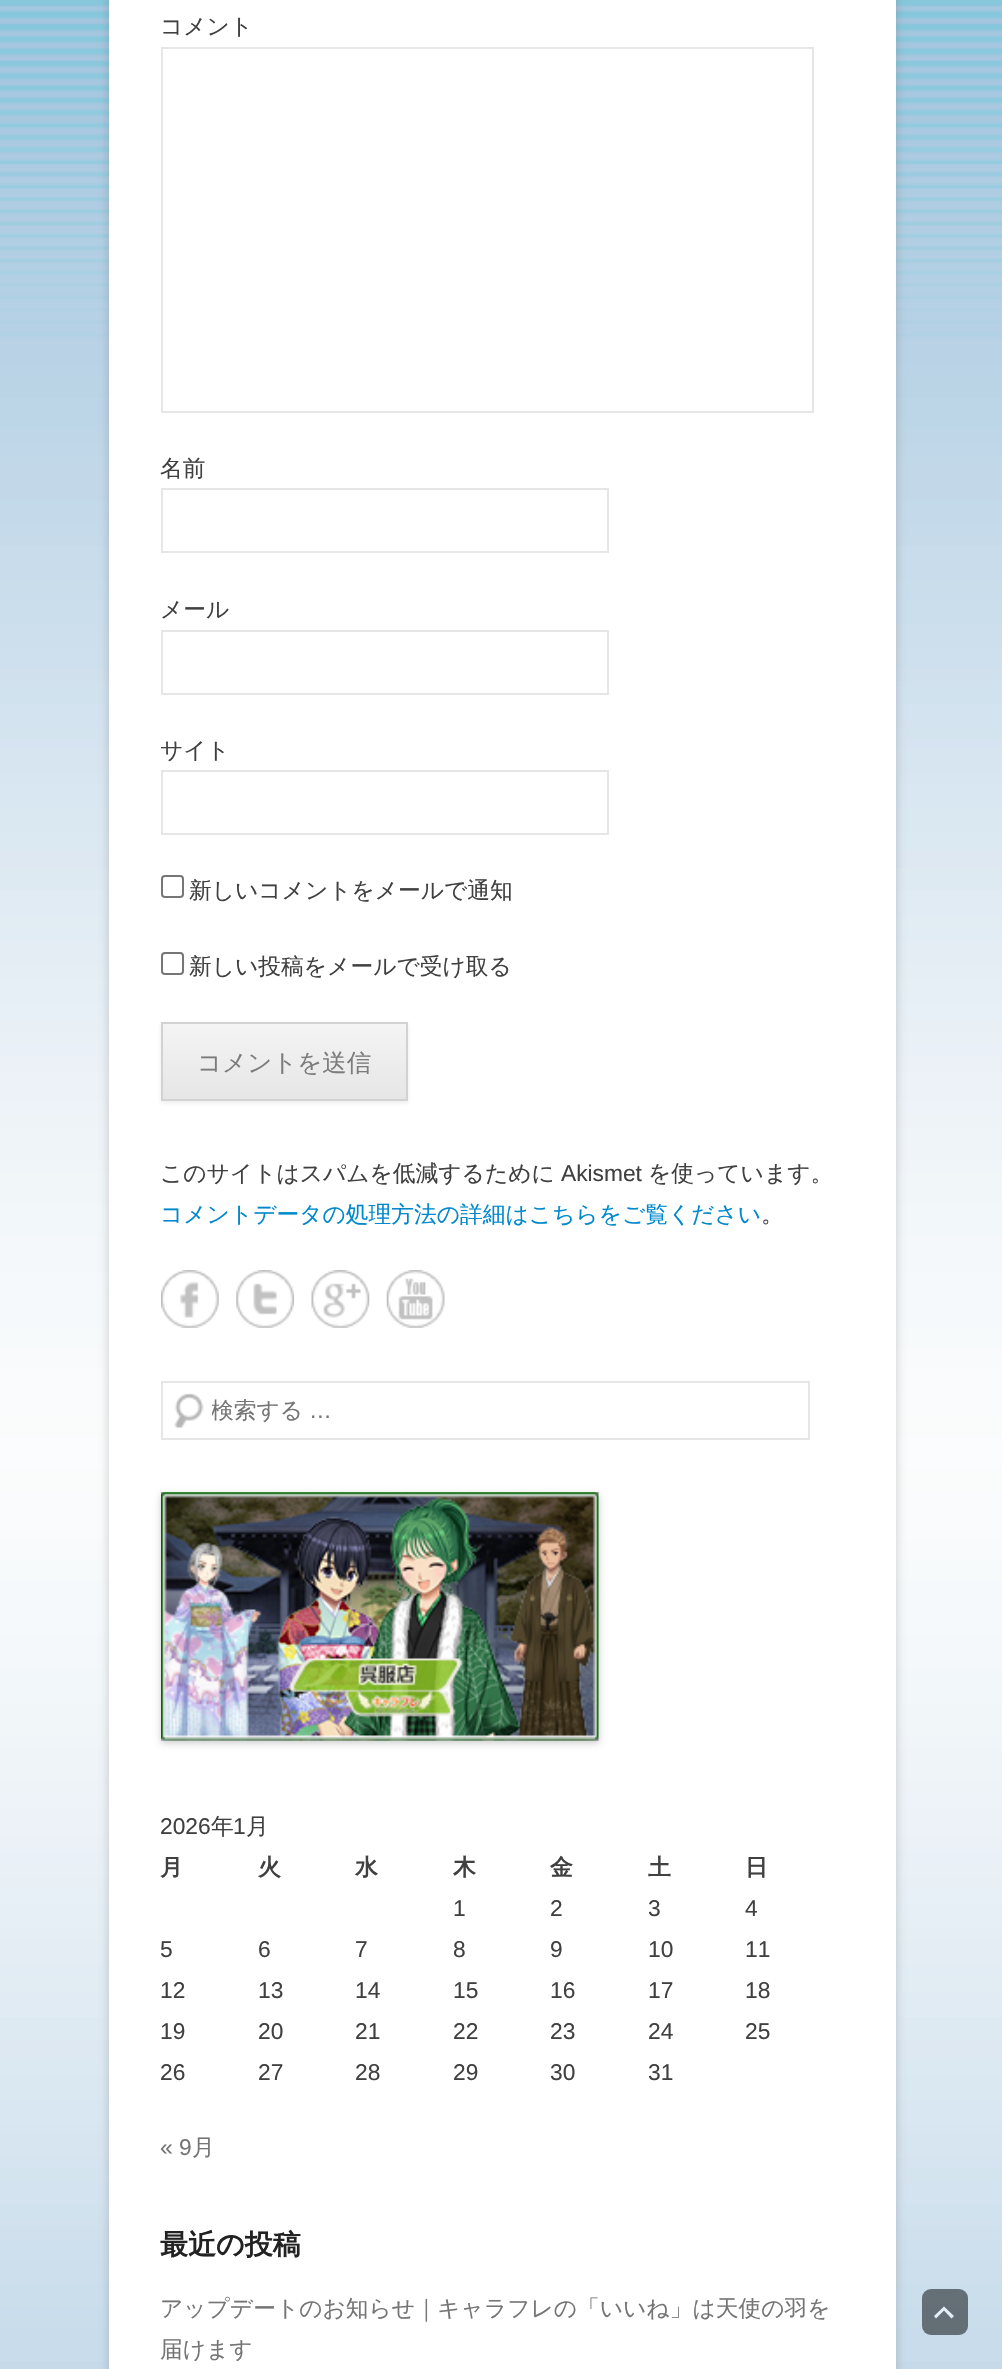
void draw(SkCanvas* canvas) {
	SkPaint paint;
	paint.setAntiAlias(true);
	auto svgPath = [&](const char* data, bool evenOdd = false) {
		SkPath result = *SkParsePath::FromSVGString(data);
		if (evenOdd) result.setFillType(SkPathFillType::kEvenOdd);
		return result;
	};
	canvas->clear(0xffffffff);
	canvas->drawImageRect(SkImages::DeferredFromEncodedData(SkData::MakeFromFileName("img1.png")), SkRect::MakeXYWH(0, 0, 1002, 2369), SkSamplingOptions());
	paint.setColor(0x4d646464);
	paint.setMaskFilter(SkMaskFilter::MakeBlur(kNormal_SkBlurStyle, 5));
	canvas->drawRect(SkRect::MakeXYWH(109, -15, 787, 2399), paint);
	paint.setMaskFilter(nullptr);
	paint.setColor(0xffffffff);
	canvas->drawRect(SkRect::MakeXYWH(109, 0, 787, 2369), paint);
	SkFont f1(fontMgr->matchFamilyStyle("WenQuanYi Zen Hei", SkFontStyle(500, SkFontStyle::kNormal_Width, SkFontStyle::kUpright_Slant)), 22.75);
	f1.setSubpixel(true);
	paint.setColor(0xff404040);
	canvas->drawString("コメント", 160, 34, f1, paint);
	paint.setStroke(true);
	paint.setStrokeWidth(2);
	paint.setColor(0xffe6e6e6);
	canvas->drawRect(SkRect::MakeXYWH(162, 48, 651, 364), paint);
	paint.setStroke(false);
	paint.setColor(0xff404040);
	canvas->drawString("名前", 160, 476, f1, paint);
	paint.setStroke(true);
	paint.setColor(0xffe6e6e6);
	canvas->drawRect(SkRect::MakeXYWH(162, 489, 446, 63), paint);
	paint.setStroke(false);
	paint.setColor(0xff404040);
	canvas->drawString("メール", 160, 617, f1, paint);
	paint.setStroke(true);
	paint.setColor(0xffe6e6e6);
	canvas->drawRect(SkRect::MakeXYWH(162, 631, 446, 63), paint);
	paint.setStroke(false);
	paint.setColor(0xff404040);
	canvas->drawString("サイト", 160, 758, f1, paint);
	paint.setStroke(true);
	paint.setColor(0xffe6e6e6);
	canvas->drawRect(SkRect::MakeXYWH(162, 771, 446, 63), paint);
	paint.setColor(0xff767676);
	canvas->drawRoundRect(SkRect::MakeXYWH(162, 876, 21, 21), 3, 3, paint);
	paint.setStroke(false);
	paint.setColor(0xff404040);
	canvas->drawString("新しいコメントをメールで通知", 189, 898, f1, paint);
	paint.setStroke(true);
	paint.setColor(0xff767676);
	canvas->drawRoundRect(SkRect::MakeXYWH(162, 953, 21, 21), 3, 3, paint);
	paint.setStroke(false);
	paint.setColor(0xff404040);
	canvas->drawString("新しい投稿をメールで受け取る", 189, 974, f1, paint);
	paint.setColor(0x1a404040);
	paint.setMaskFilter(SkMaskFilter::MakeBlur(kNormal_SkBlurStyle, 2));
	canvas->drawRect(SkRect::MakeXYWH(161, 1024, 247, 79), paint);
	paint.setMaskFilter(nullptr);
	{
		const SkColor colors[] = {0xfff4f4f4, 0xffe6e6e6};
		const float stops[] = {0, 1};
		const SkPoint ends[] = {{284, 1024}, {284, 1099}};
		paint.setShader(SkGradientShader::MakeLinear(ends, colors, stops, 2, SkTileMode::kClamp));
		paint.setAlpha(255);
	}
	canvas->drawRect(SkRect::MakeXYWH(163, 1025, 243, 74), paint);
	paint.setStroke(true);
	paint.setShader(nullptr);
	paint.setColor(0xffd2d2d2);
	canvas->drawRect(SkRect::MakeXYWH(162, 1023, 245, 77), paint);
	SkFont f2(fontMgr->matchFamilyStyle("WenQuanYi Zen Hei", SkFontStyle(500, SkFontStyle::kNormal_Width, SkFontStyle::kUpright_Slant)), 24.5);
	f2.setSubpixel(true);
	paint.setStroke(false);
	paint.setColor(0xff7c7c7c);
	canvas->drawString("コメントを送信", 197, 1071, f2, paint);
	paint.setColor(0xff404040);
	canvas->drawString("このサイトはスパムを低減するために", 160, 1181, f1, paint);
	SkFont f3(fontMgr->matchFamilyStyle("Liberation Sans", SkFontStyle::Normal()), 22.75);
	f3.setSubpixel(true);
	canvas->drawString("Akismet", 561, 1181, f3, paint);
	canvas->drawString("を使っています。", 648, 1181, f1, paint);
	paint.setColor(0xff0088cc);
	canvas->drawString("コメントデータの処理方法の詳細はこちらをご覧ください", 160, 1222, f1, paint);
	paint.setColor(0xff404040);
	canvas->drawString("。", 761, 1222, f1, paint);
	canvas->drawImageRect(SkImages::DeferredFromEncodedData(SkData::MakeFromFileName("img2.png")), SkRect::MakeXYWH(161, 1270, 58, 58), SkSamplingOptions());
	canvas->drawImageRect(SkImages::DeferredFromEncodedData(SkData::MakeFromFileName("img3.png")), SkRect::MakeXYWH(236, 1270, 58, 58), SkSamplingOptions());
	canvas->drawImageRect(SkImages::DeferredFromEncodedData(SkData::MakeFromFileName("img4.png")), SkRect::MakeXYWH(311, 1270, 59, 58), SkSamplingOptions());
	canvas->drawImageRect(SkImages::DeferredFromEncodedData(SkData::MakeFromFileName("img5.png")), SkRect::MakeXYWH(386, 1270, 59, 58), SkSamplingOptions());
	canvas->drawImageRect(SkImages::DeferredFromEncodedData(SkData::MakeFromFileName("img6.png")), SkRect::MakeXYWH(174, 1393, 30, 35), SkSamplingOptions());
	paint.setStroke(true);
	paint.setColor(0xffe6e6e6);
	canvas->drawRect(SkRect::MakeXYWH(162, 1382, 647, 57), paint);
	canvas->save();
	canvas->clipRect(SkRect::MakeXYWH(212, 1395, 579, 31));
	paint.setStroke(false);
	paint.setColor(0xff757575);
	canvas->drawString("検索する", 211, 1418, f1, paint);
	canvas->restore();
	canvas->drawString("…", 309, 1418, f3, paint);
	paint.setColor(0x33000000);
	paint.setMaskFilter(SkMaskFilter::MakeBlur(kNormal_SkBlurStyle, 3.5));
	canvas->drawRect(SkRect::MakeXYWH(161, 1495, 438, 248), paint);
	paint.setMaskFilter(nullptr);
	canvas->drawImageRect(SkImages::DeferredFromEncodedData(SkData::MakeFromFileName("img7.png")), SkRect::MakeXYWH(161, 1492, 438, 249), SkSamplingOptions());
	paint.setColor(0xff404040);
	canvas->drawString("2026", 160, 1834, f3, paint);
	canvas->drawString("年", 211, 1834, f1, paint);
	canvas->drawString("1", 233, 1834, f3, paint);
	canvas->drawString("月", 246, 1834, f1, paint);
	SkFont f4(fontMgr->matchFamilyStyle("WenQuanYi Zen Hei", SkFontStyle::Bold()), 22.75);
	f4.setSubpixel(true);
	canvas->drawString("月", 160, 1875, f4, paint);
	canvas->drawString("火", 258, 1875, f4, paint);
	canvas->drawString("水", 355, 1875, f4, paint);
	canvas->drawString("木", 453, 1875, f4, paint);
	canvas->drawString("金", 550, 1875, f4, paint);
	canvas->drawString("土", 648, 1875, f4, paint);
	canvas->drawString("日", 745, 1875, f4, paint);
	canvas->drawString("1", 453, 1916, f3, paint);
	canvas->drawString("2", 550, 1916, f3, paint);
	canvas->drawString("3", 648, 1916, f3, paint);
	canvas->drawString("4", 745, 1916, f3, paint);
	canvas->drawString("5", 160, 1957, f3, paint);
	canvas->drawString("6", 258, 1957, f3, paint);
	canvas->drawString("7", 355, 1957, f3, paint);
	canvas->drawString("8", 453, 1957, f3, paint);
	canvas->drawString("9", 550, 1957, f3, paint);
	canvas->drawString("10", 648, 1957, f3, paint);
	canvas->drawString("11", 745, 1957, f3, paint);
	canvas->drawString("12", 160, 1998, f3, paint);
	canvas->drawString("13", 258, 1998, f3, paint);
	canvas->drawString("14", 355, 1998, f3, paint);
	canvas->drawString("15", 453, 1998, f3, paint);
	canvas->drawString("16", 550, 1998, f3, paint);
	canvas->drawString("17", 648, 1998, f3, paint);
	canvas->drawString("18", 745, 1998, f3, paint);
	canvas->drawString("19", 160, 2039, f3, paint);
	canvas->drawString("20", 258, 2039, f3, paint);
	canvas->drawString("21", 355, 2039, f3, paint);
	canvas->drawString("22", 453, 2039, f3, paint);
	canvas->drawString("23", 550, 2039, f3, paint);
	canvas->drawString("24", 648, 2039, f3, paint);
	canvas->drawString("25", 745, 2039, f3, paint);
	canvas->drawString("26", 160, 2080, f3, paint);
	canvas->drawString("27", 258, 2080, f3, paint);
	canvas->drawString("28", 355, 2080, f3, paint);
	canvas->drawString("29", 453, 2080, f3, paint);
	canvas->drawString("30", 550, 2080, f3, paint);
	canvas->drawString("31", 648, 2080, f3, paint);
	paint.setColor(0xff757575);
	canvas->drawString("« 9", 160, 2155, f3, paint);
	canvas->drawString("月", 192, 2155, f1, paint);
	SkFont f5(fontMgr->matchFamilyStyle("WenQuanYi Zen Hei", SkFontStyle::Bold()), 28);
	f5.setSubpixel(true);
	paint.setColor(0xff222222);
	canvas->drawString("最近の投稿", 160, 2254, f5, paint);
	paint.setColor(0xff757575);
	canvas->drawString("アップデートのお知らせ｜キャラフレの「いいね」は天使の羽を", 160, 2316, f1, paint);
	canvas->drawString("届けます", 160, 2357, f1, paint);
	paint.setColor(0x80000000);
	canvas->drawRoundRect(SkRect::MakeXYWH(922, 2289, 46, 46), 9, 9, paint);
	paint.setColor(0xffe4eef5);
	canvas->drawPath(svgPath("M951.5 2318.5L944 2310.5L936 2318.5L934 2316L944 2306.5L954 2316Z"), paint);
}
